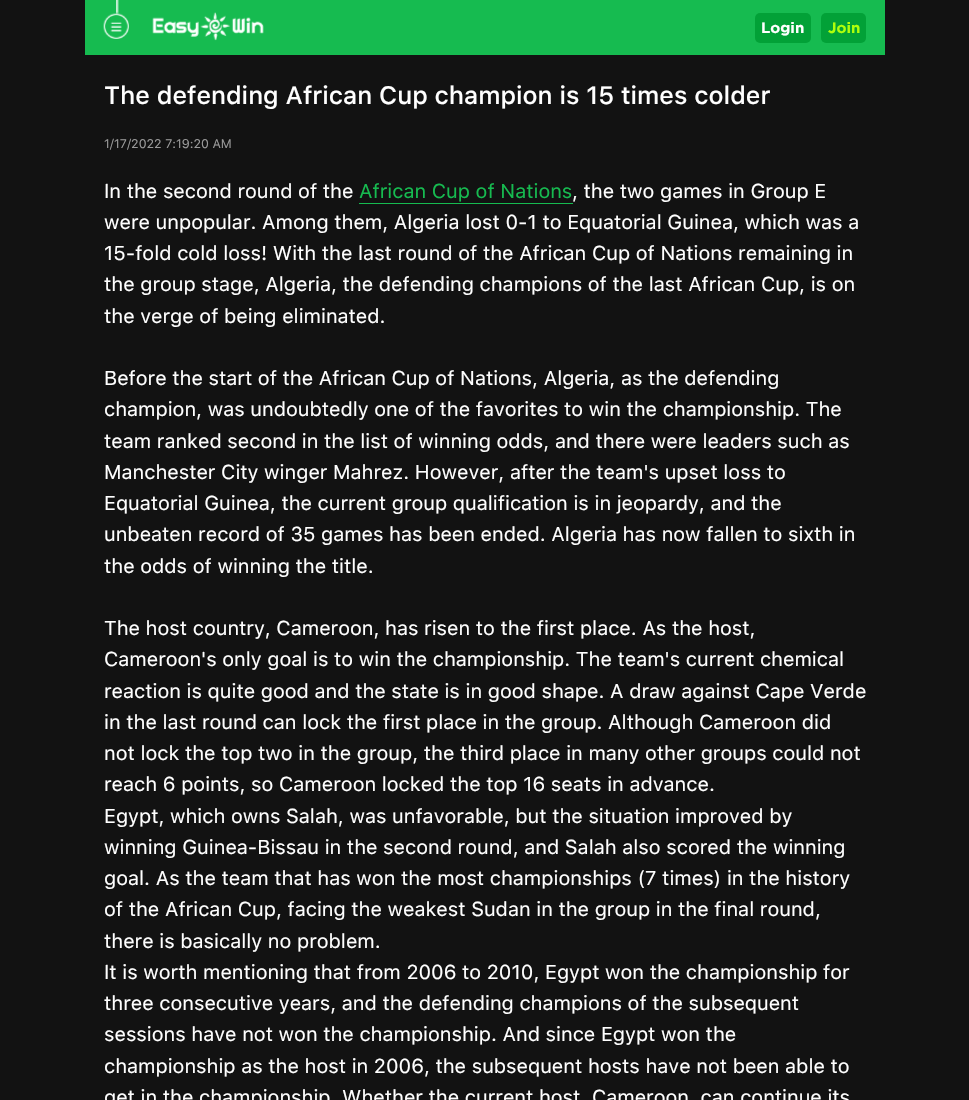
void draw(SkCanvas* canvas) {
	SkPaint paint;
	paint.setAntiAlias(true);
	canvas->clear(0xff121212);
	paint.setColor(0xff16bb50);
	canvas->drawRect(SkRect::MakeXYWH(85, 0, 800, 55), paint);
	canvas->drawImageRect(SkImages::DeferredFromEncodedData(SkData::MakeFromFileName("img2.png")), SkRect::MakeXYWH(103, 13, 26, 26), SkSamplingOptions());
	canvas->drawImageRect(SkImages::DeferredFromEncodedData(SkData::MakeFromFileName("img1.png")), SkRect::MakeXYWH(116, 0, 3, 14), SkSamplingOptions());
	canvas->drawImageRect(SkImages::DeferredFromEncodedData(SkData::MakeFromFileName("img3.png")), SkRect::MakeXYWH(152, 12, 112, 29), SkSamplingOptions());
	paint.setColor(0xff02a137);
	canvas->drawRoundRect(SkRect::MakeXYWH(755, 13, 56, 30), 5, 5, paint);
	SkFont f1(fontMgr->matchFamilyStyle("Gotham", SkFontStyle::Bold()), 15);
	f1.setSubpixel(true);
	paint.setColor(0xffffffff);
	canvas->drawString("Login", 761, 33, f1, paint);
	paint.setColor(0xff02a137);
	canvas->drawRoundRect(SkRect::MakeXYWH(821, 13, 45, 30), 5, 5, paint);
	paint.setColor(0xffaeff0b);
	canvas->drawString("Join", 828, 33, f1, paint);
	SkFont f2(fontMgr->matchFamilyStyle("SF Pro Text", SkFontStyle(500, SkFontStyle::kNormal_Width, SkFontStyle::kUpright_Slant)), 25);
	f2.setSubpixel(true);
	paint.setColor(0xffffffff);
	canvas->drawString("The defending African Cup champion is 15 times colder", 104, 104, f2, paint);
	SkFont f3(fontMgr->matchFamilyStyle("SF Pro Text", SkFontStyle::Normal()), 12.5);
	f3.setSubpixel(true);
	paint.setColor(0xff999999);
	canvas->drawString("1/17/2022 7:19:20 AM", 104, 148, f3, paint);
	SkFont f4(fontMgr->matchFamilyStyle("SF Pro Text", SkFontStyle::Normal()), 20);
	f4.setSubpixel(true);
	paint.setColor(0xffffffff);
	canvas->drawString("In the second round of the", 104, 198, f4, paint);
	paint.setColor(0xff16bb50);
	canvas->drawString("African Cup of Nations", 359, 198, f4, paint);
	canvas->drawRect(SkRect::MakeXYWH(359, 203, 214, 1), paint);
	paint.setColor(0xffffffff);
	canvas->drawString(", the two games in Group E", 572, 198, f4, paint);
	canvas->drawString("were unpopular. Among them, Algeria lost 0-1 to Equatorial Guinea, which was a", 104, 229, f4, paint);
	canvas->drawString("15-fold cold loss! With the last round of the African Cup of Nations remaining in", 104, 260, f4, paint);
	canvas->drawString("the group stage, Algeria, the defending champions of the last African Cup, is on", 104, 291, f4, paint);
	canvas->drawString("the verge of being eliminated.", 104, 323, f4, paint);
	canvas->drawString("Before the start of the African Cup of Nations, Algeria, as the defending", 104, 385, f4, paint);
	canvas->drawString("champion, was undoubtedly one of the favorites to win the championship. The", 104, 416, f4, paint);
	canvas->drawString("team ranked second in the list of winning odds, and there were leaders such as", 104, 448, f4, paint);
	canvas->drawString("Manchester City winger Mahrez. However, after the team's upset loss to", 104, 479, f4, paint);
	canvas->drawString("Equatorial Guinea, the current group qualification is in jeopardy, and the", 104, 510, f4, paint);
	canvas->drawString("unbeaten record of 35 games has been ended. Algeria has now fallen to sixth in", 104, 541, f4, paint);
	canvas->drawString("the odds of winning the title.", 104, 573, f4, paint);
	canvas->drawString("The host country, Cameroon, has risen to the first place. As the host,", 104, 635, f4, paint);
	canvas->drawString("Cameroon's only goal is to win the championship. The team's current chemical", 104, 666, f4, paint);
	canvas->drawString("reaction is quite good and the state is in good shape. A draw against Cape Verde", 104, 698, f4, paint);
	canvas->drawString("in the last round can lock the first place in the group. Although Cameroon did", 104, 729, f4, paint);
	canvas->drawString("not lock the top two in the group, the third place in many other groups could not", 104, 760, f4, paint);
	canvas->drawString("reach 6 points, so Cameroon locked the top 16 seats in advance.", 104, 791, f4, paint);
	canvas->drawString("Egypt, which owns Salah, was unfavorable, but the situation improved by", 104, 823, f4, paint);
	canvas->drawString("winning Guinea-Bissau in the second round, and Salah also scored the winning", 104, 854, f4, paint);
	canvas->drawString("goal. As the team that has won the most championships (7 times) in the history", 104, 885, f4, paint);
	canvas->drawString("of the African Cup, facing the weakest Sudan in the group in the final round,", 104, 916, f4, paint);
	canvas->drawString("there is basically no problem.", 104, 948, f4, paint);
	canvas->drawString("It is worth mentioning that from 2006 to 2010, Egypt won the championship for", 104, 979, f4, paint);
	canvas->drawString("three consecutive years, and the defending champions of the subsequent", 104, 1010, f4, paint);
	canvas->drawString("sessions have not won the championship. And since Egypt won the", 104, 1041, f4, paint);
	canvas->drawString("championship as the host in 2006, the subsequent hosts have not been able to", 104, 1073, f4, paint);
	canvas->drawString("get in the championship. Whether the current host, Cameroon, can continue its", 104, 1104, f4, paint);
}
